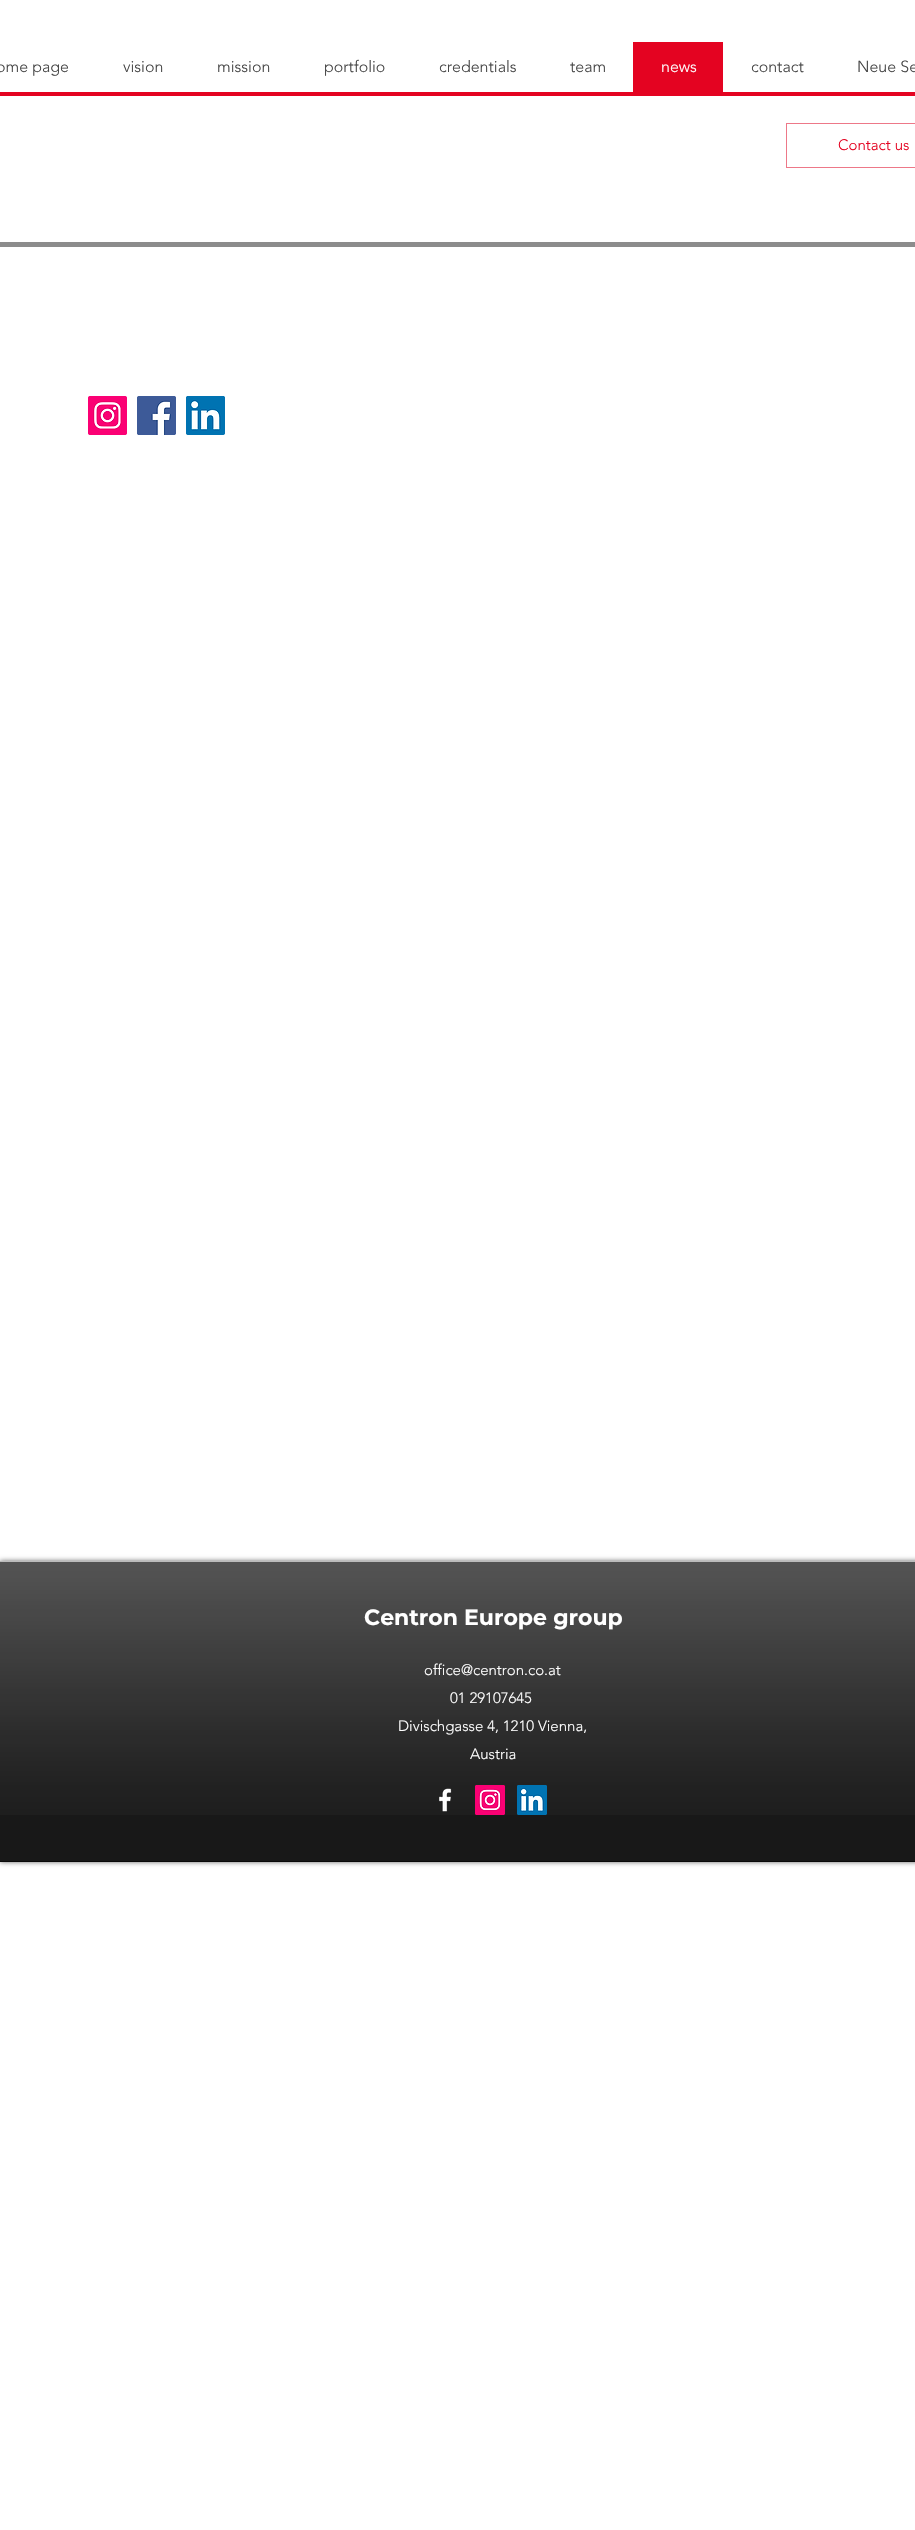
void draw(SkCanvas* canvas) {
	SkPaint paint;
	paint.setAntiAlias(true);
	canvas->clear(0xffffffff);
	paint.setColor(0xffe40321);
	canvas->drawRect(SkRect::MakeXYWH(0, 92, 915, 4), paint);
	SkFont f1(fontMgr->matchFamilyStyle("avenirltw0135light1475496", SkFontStyle(300, SkFontStyle::kNormal_Width, SkFontStyle::kUpright_Slant)), 16);
	f1.setSubpixel(true);
	paint.setColor(0xff444444);
	canvas->drawString("ome page", -4, 72, f1, paint);
	canvas->drawString("vision", 123, 72, f1, paint);
	canvas->drawString("mission", 217, 72, f1, paint);
	canvas->drawString("portfolio", 324, 72, f1, paint);
	canvas->drawString("credentials", 439, 72, f1, paint);
	canvas->drawString("team", 570, 72, f1, paint);
	paint.setColor(0xffe40321);
	canvas->drawRect(SkRect::MakeXYWH(633, 42, 90, 50), paint);
	paint.setColor(0xffffffff);
	canvas->drawString("news", 661, 72, f1, paint);
	paint.setColor(0xff444444);
	canvas->drawString("contact", 751, 72, f1, paint);
	canvas->drawString("Neue Se", 857, 72, f1, paint);
	paint.setStroke(true);
	paint.setStrokeWidth(1);
	paint.setColor(0xffed7888);
	canvas->drawRect(SkRect::MakeXYWH(786.5, 123.5, 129, 44), paint);
	SkFont f2(fontMgr->matchFamilyStyle("avenirltw0135light1475496", SkFontStyle(300, SkFontStyle::kNormal_Width, SkFontStyle::kUpright_Slant)), 15);
	f2.setSubpixel(true);
	paint.setStroke(false);
	paint.setColor(0xffe40321);
	canvas->drawString("Contact us", 838, 150, f2, paint);
	paint.setColor(0xff8c8c8c);
	canvas->drawRect(SkRect::MakeXYWH(0, 242, 915, 5), paint);
	canvas->drawImageRect(SkImages::DeferredFromEncodedData(SkData::MakeFromFileName("img1.png")), SkRect::MakeXYWH(88, 396, 39, 39), SkSamplingOptions());
	canvas->drawImageRect(SkImages::DeferredFromEncodedData(SkData::MakeFromFileName("img2.png")), SkRect::MakeXYWH(137, 396, 39, 39), SkSamplingOptions());
	canvas->drawImageRect(SkImages::DeferredFromEncodedData(SkData::MakeFromFileName("img3.png")), SkRect::MakeXYWH(186, 396, 39, 39), SkSamplingOptions());
	paint.setColor(0x99000000);
	paint.setMaskFilter(SkMaskFilter::MakeBlur(kNormal_SkBlurStyle, 2.5));
	canvas->drawRect(SkRect::MakeXYWH(0, 1561, 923, 301), paint);
	paint.setMaskFilter(nullptr);
	paint.setColor(0xff181818);
	canvas->drawRect(SkRect::MakeXYWH(0, 1562, 915, 299), paint);
	canvas->drawImageRect(SkImages::DeferredFromEncodedData(SkData::MakeFromFileName("img4.png")), SkRect::MakeXYWH(0, 1562, 915, 253), SkSamplingOptions());
	paint.setColor(0xff0a0a0a);
	canvas->drawRect(SkRect::MakeXYWH(0, 1861, 915, 1), paint);
	paint.setColor(0xffbbbbbb);
	canvas->drawRect(SkRect::MakeXYWH(0, 1561, 915, 1), paint);
	SkFont f3(fontMgr->matchFamilyStyle("Montserrat", SkFontStyle::Bold()), 22);
	f3.setSubpixel(true);
	paint.setColor(0xffffffff);
	canvas->drawString("Centron Europe group", 364, 1625, f3, paint);
	canvas->drawString("office@centron.co.at", 424, 1675, f2, paint);
	canvas->drawString("01 29107645", 450, 1703, f2, paint);
	canvas->drawString("Divischgasse 4, 1210 Vienna,", 398, 1731, f2, paint);
	canvas->drawString("Austria", 470, 1759, f2, paint);
	canvas->drawImageRect(SkImages::DeferredFromEncodedData(SkData::MakeFromFileName("img5.png")), SkRect::MakeXYWH(439, 1788, 13, 24), SkSamplingOptions());
	canvas->drawImageRect(SkImages::DeferredFromEncodedData(SkData::MakeFromFileName("img6.png")), SkRect::MakeXYWH(475, 1785, 30, 30), SkSamplingOptions());
	canvas->drawImageRect(SkImages::DeferredFromEncodedData(SkData::MakeFromFileName("img7.png")), SkRect::MakeXYWH(517, 1785, 30, 30), SkSamplingOptions());
}
